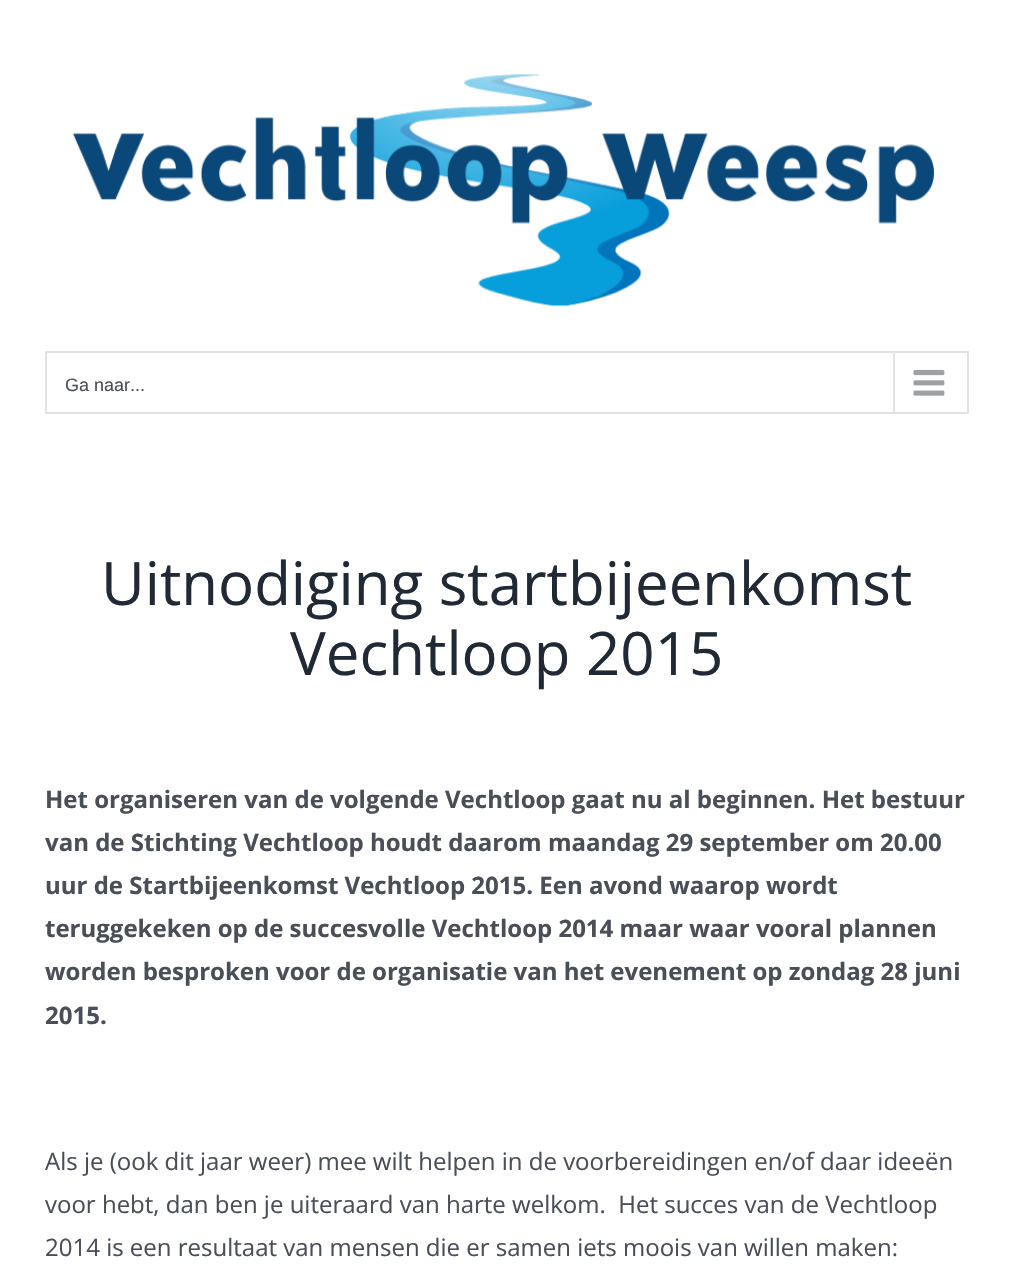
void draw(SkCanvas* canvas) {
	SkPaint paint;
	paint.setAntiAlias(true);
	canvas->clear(0xffffffff);
	canvas->drawImageRect(SkImages::DeferredFromEncodedData(SkData::MakeFromFileName("img1.png")), SkRect::MakeXYWH(72, 74, 862, 233), SkSamplingOptions());
	paint.setStroke(true);
	paint.setStrokeWidth(2);
	paint.setColor(0xffe2e2e2);
	canvas->drawRect(SkRect::MakeXYWH(46, 352, 922, 61), paint);
	SkFont f1(fontMgr->matchFamilyStyle("Liberation Sans", SkFontStyle::Normal()), 18);
	f1.setSubpixel(true);
	paint.setStroke(false);
	paint.setColor(0xff4a4e57);
	canvas->drawString("Ga naar...", 65, 391, f1, paint);
	paint.setColor(0xffe2e2e2);
	canvas->drawRect(SkRect::MakeXYWH(893, 353, 2, 60), paint);
	canvas->drawImageRect(SkImages::DeferredFromEncodedData(SkData::MakeFromFileName("img2.png")), SkRect::MakeXYWH(913, 369, 32, 27), SkSamplingOptions());
	SkFont f2(fontMgr->matchFamilyStyle("Open Sans", SkFontStyle::Normal()), 60);
	f2.setSubpixel(true);
	paint.setColor(0xff212934);
	canvas->drawString("Uitnodiging startbijeenkomst", 101, 605, f2, paint);
	canvas->drawString("Vechtloop 2015", 290, 675, f2, paint);
	SkFont f3(fontMgr->matchFamilyStyle("Open Sans", SkFontStyle::Bold()), 24);
	f3.setSubpixel(true);
	paint.setColor(0xff4a4e57);
	canvas->drawString("Het organiseren van de volgende Vechtloop gaat nu al beginnen. Het bestuur", 45, 808, f3, paint);
	canvas->drawString("van de Stichting Vechtloop houdt daarom maandag 29 september om 20.00", 45, 851, f3, paint);
	canvas->drawString("uur de Startbijeenkomst Vechtloop 2015. Een avond waarop wordt", 45, 894, f3, paint);
	canvas->drawString("teruggekeken op de succesvolle Vechtloop 2014 maar waar vooral plannen", 45, 937, f3, paint);
	canvas->drawString("worden besproken voor de organisatie van het evenement op zondag 28 juni", 45, 980, f3, paint);
	canvas->drawString("2015.", 45, 1024, f3, paint);
	SkFont f4(fontMgr->matchFamilyStyle("Open Sans", SkFontStyle::Normal()), 24);
	f4.setSubpixel(true);
	canvas->drawString("Als je (ook dit jaar weer) mee wilt helpen in de voorbereidingen en/of daar ideeën", 45, 1170, f4, paint);
	canvas->drawString("voor hebt, dan ben je uiteraard van harte welkom.  Het succes van de Vechtloop", 45, 1213, f4, paint);
	canvas->drawString("2014 is een resultaat van mensen die er samen iets moois van willen maken:", 45, 1256, f4, paint);
}
